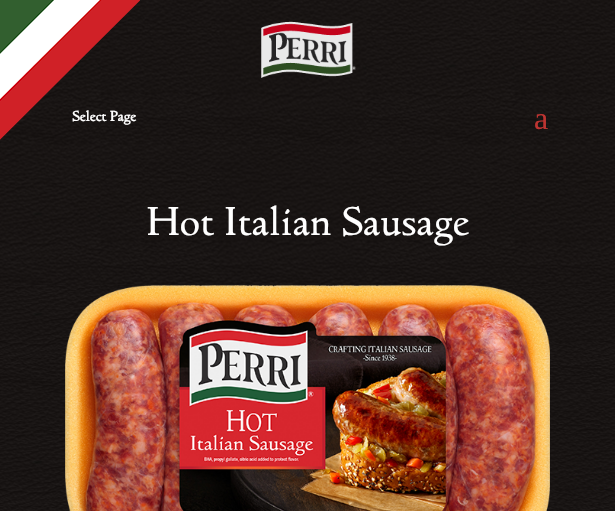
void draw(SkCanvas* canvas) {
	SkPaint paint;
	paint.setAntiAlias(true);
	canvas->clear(0xffffffff);
	canvas->drawImageRect(SkImages::DeferredFromEncodedData(SkData::MakeFromFileName("img3.png")), SkRect::MakeXYWH(0, 0, 615, 285), SkSamplingOptions());
	canvas->drawImageRect(SkImages::DeferredFromEncodedData(SkData::MakeFromFileName("img1.png")), SkRect::MakeXYWH(0, 0, 140, 140), SkSamplingOptions());
	canvas->drawImageRect(SkImages::DeferredFromEncodedData(SkData::MakeFromFileName("img2.png")), SkRect::MakeXYWH(261, 21, 95, 57), SkSamplingOptions());
	SkFont f1(fontMgr->matchFamilyStyle("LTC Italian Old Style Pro", SkFontStyle::Bold()), 14);
	f1.setSubpixel(true);
	paint.setColor(0xffffffff);
	canvas->drawString("Select Page", 72, 121, f1, paint);
	SkFont f2(fontMgr->matchFamilyStyle("Liberation Serif", SkFontStyle::Normal()), 32);
	f2.setSubpixel(true);
	paint.setColor(0xffbe3431);
	canvas->drawString("a", 534, 129, f2, paint);
	SkFont f3(fontMgr->matchFamilyStyle("LTC Italian Old Style Pro", SkFontStyle::Normal()), 40);
	f3.setSubpixel(true);
	paint.setColor(0xffffffff);
	canvas->drawString("Hot Italian Sausage", 146, 235, f3, paint);
	canvas->drawImageRect(SkImages::DeferredFromEncodedData(SkData::MakeFromFileName("img4.png")), SkRect::MakeXYWH(0, 285, 615, 226), SkSamplingOptions());
	canvas->drawImageRect(SkImages::DeferredFromEncodedData(SkData::MakeFromFileName("img5.png")), SkRect::MakeXYWH(65, 285, 485, 226), SkSamplingOptions());
}
